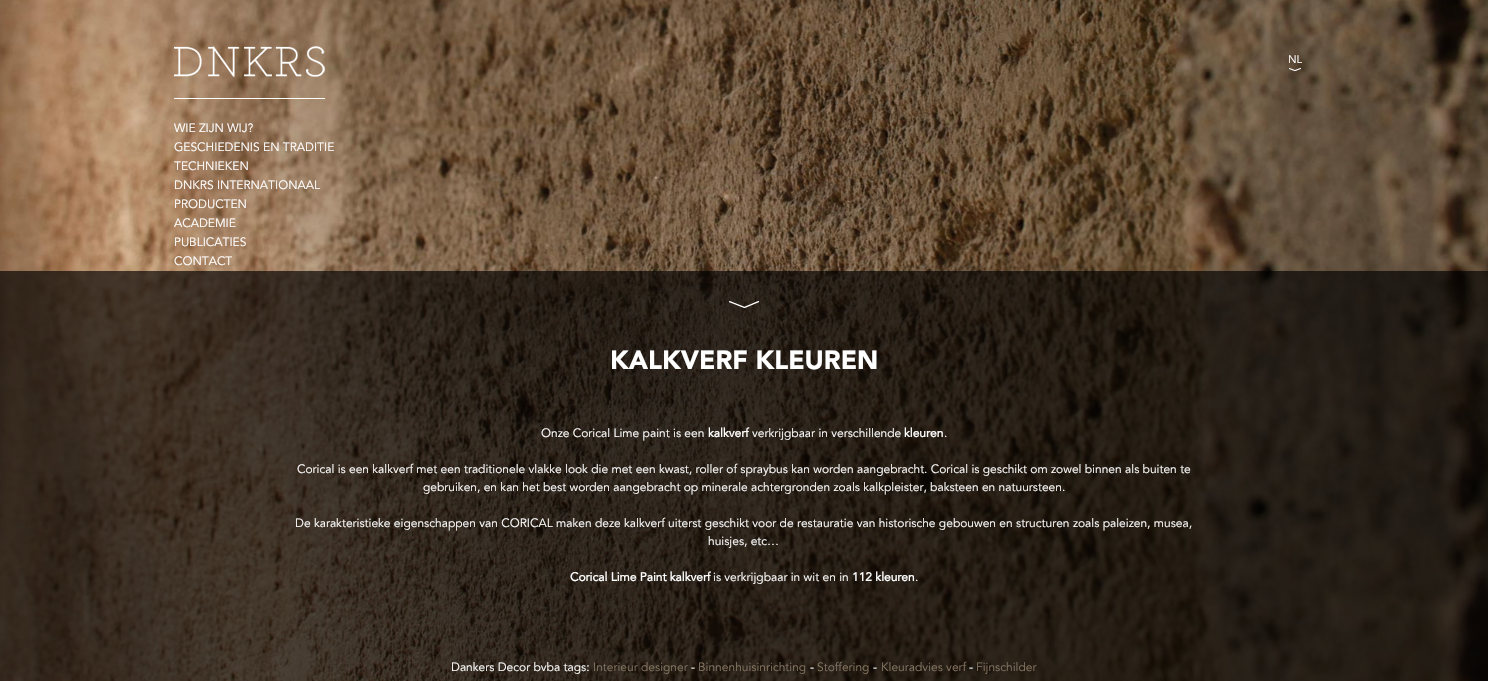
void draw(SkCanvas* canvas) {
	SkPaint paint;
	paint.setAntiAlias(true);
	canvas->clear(0xffffffff);
	canvas->drawImageRect(SkImages::DeferredFromEncodedData(SkData::MakeFromFileName("img1.png")), SkRect::MakeXYWH(0, 0, 1488, 681), SkSamplingOptions());
	canvas->drawImageRect(SkImages::DeferredFromEncodedData(SkData::MakeFromFileName("img2.png")), SkRect::MakeXYWH(1289, 68, 12, 3), SkSamplingOptions());
	SkFont f1(fontMgr->matchFamilyStyle("Avenir", SkFontStyle::Normal()), 11);
	f1.setSubpixel(true);
	paint.setColor(0xffffffff);
	canvas->drawString("NL", 1288, 63, f1, paint);
	canvas->drawRect(SkRect::MakeXYWH(174, 98, 151, 1), paint);
	canvas->drawImageRect(SkImages::DeferredFromEncodedData(SkData::MakeFromFileName("img3.png")), SkRect::MakeXYWH(174, 46, 151, 32), SkSamplingOptions());
	SkFont f2(fontMgr->matchFamilyStyle("Avenir", SkFontStyle::Normal()), 12);
	f2.setSubpixel(true);
	canvas->drawString("WIE ZIJN WIJ?", 174, 132, f2, paint);
	canvas->drawString("GESCHIEDENIS EN TRADITIE", 174, 151, f2, paint);
	canvas->drawString("TECHNIEKEN", 174, 170, f2, paint);
	canvas->drawString("DNKRS INTERNATIONAAL", 174, 189, f2, paint);
	canvas->drawString("PRODUCTEN", 174, 208, f2, paint);
	canvas->drawString("ACADEMIE", 174, 227, f2, paint);
	canvas->drawString("PUBLICATIES", 174, 246, f2, paint);
	canvas->drawString("CONTACT", 174, 265, f2, paint);
	paint.setColor(0xa8000000);
	canvas->drawRect(SkRect::MakeXYWH(0, 271, 1488, 410), paint);
	canvas->drawImageRect(SkImages::DeferredFromEncodedData(SkData::MakeFromFileName("img4.png")), SkRect::MakeXYWH(729, 301, 30, 7), SkSamplingOptions());
	SkFont f3(fontMgr->matchFamilyStyle("Avenir", SkFontStyle(900, SkFontStyle::kNormal_Width, SkFontStyle::kUpright_Slant)), 26);
	f3.setSubpixel(true);
	paint.setColor(0xffffffff);
	canvas->drawString("KALKVERF KLEUREN", 610, 369, f3, paint);
	canvas->drawString("Onze Corical Lime paint is een", 541, 437, f2, paint);
	SkFont f4(fontMgr->matchFamilyStyle("Avenir", SkFontStyle::Bold()), 12);
	f4.setSubpixel(true);
	canvas->drawString("kalkverf", 708, 437, f4, paint);
	canvas->drawString("verkrijgbaar in verschillende", 752, 437, f2, paint);
	canvas->drawString("kleuren", 904, 437, f4, paint);
	canvas->drawString(".", 944, 437, f2, paint);
	canvas->drawString("Corical is een kalkverf met een traditionele vlakke look die met een kwast, roller of spraybus kan worden aangebracht. Corical is geschikt om zowel binnen als buiten te", 297, 473, f2, paint);
	canvas->drawString("gebruiken, en kan het best worden aangebracht op minerale achtergronden zoals kalkpleister, baksteen en natuursteen.", 423, 491, f2, paint);
	canvas->drawString("De karakteristieke eigenschappen van CORICAL maken deze kalkverf uiterst geschikt voor de restauratie van historische gebouwen en structuren zoals paleizen, musea,", 295, 527, f2, paint);
	canvas->drawString("huisjes, etc…", 708, 545, f2, paint);
	canvas->drawString("Corical Lime Paint kalkverf", 570, 581, f4, paint);
	canvas->drawString("is verkrijgbaar in wit en in", 713, 581, f2, paint);
	canvas->drawString("112 kleuren", 852, 581, f4, paint);
	canvas->drawString(".", 915, 581, f2, paint);
	canvas->drawString("Dankers Decor bvba tags:", 451, 671, f2, paint);
	paint.setColor(0xff857662);
	canvas->drawString("Interieur designer", 593, 671, f2, paint);
	paint.setColor(0xffffffff);
	canvas->drawString("-", 691, 671, f2, paint);
	paint.setColor(0xff857662);
	canvas->drawString("Binnenhuisinrichting", 698, 671, f2, paint);
	paint.setColor(0xffffffff);
	canvas->drawString("-", 810, 671, f2, paint);
	paint.setColor(0xff857662);
	canvas->drawString("Stoffering", 817, 671, f2, paint);
	paint.setColor(0xffffffff);
	canvas->drawString("-", 873, 671, f2, paint);
	paint.setColor(0xff857662);
	canvas->drawString("Kleuradvies verf", 881, 671, f2, paint);
	paint.setColor(0xffffffff);
	canvas->drawString("-", 969, 671, f2, paint);
	paint.setColor(0xff857662);
	canvas->drawString("Fijnschilder", 976, 671, f2, paint);
}
